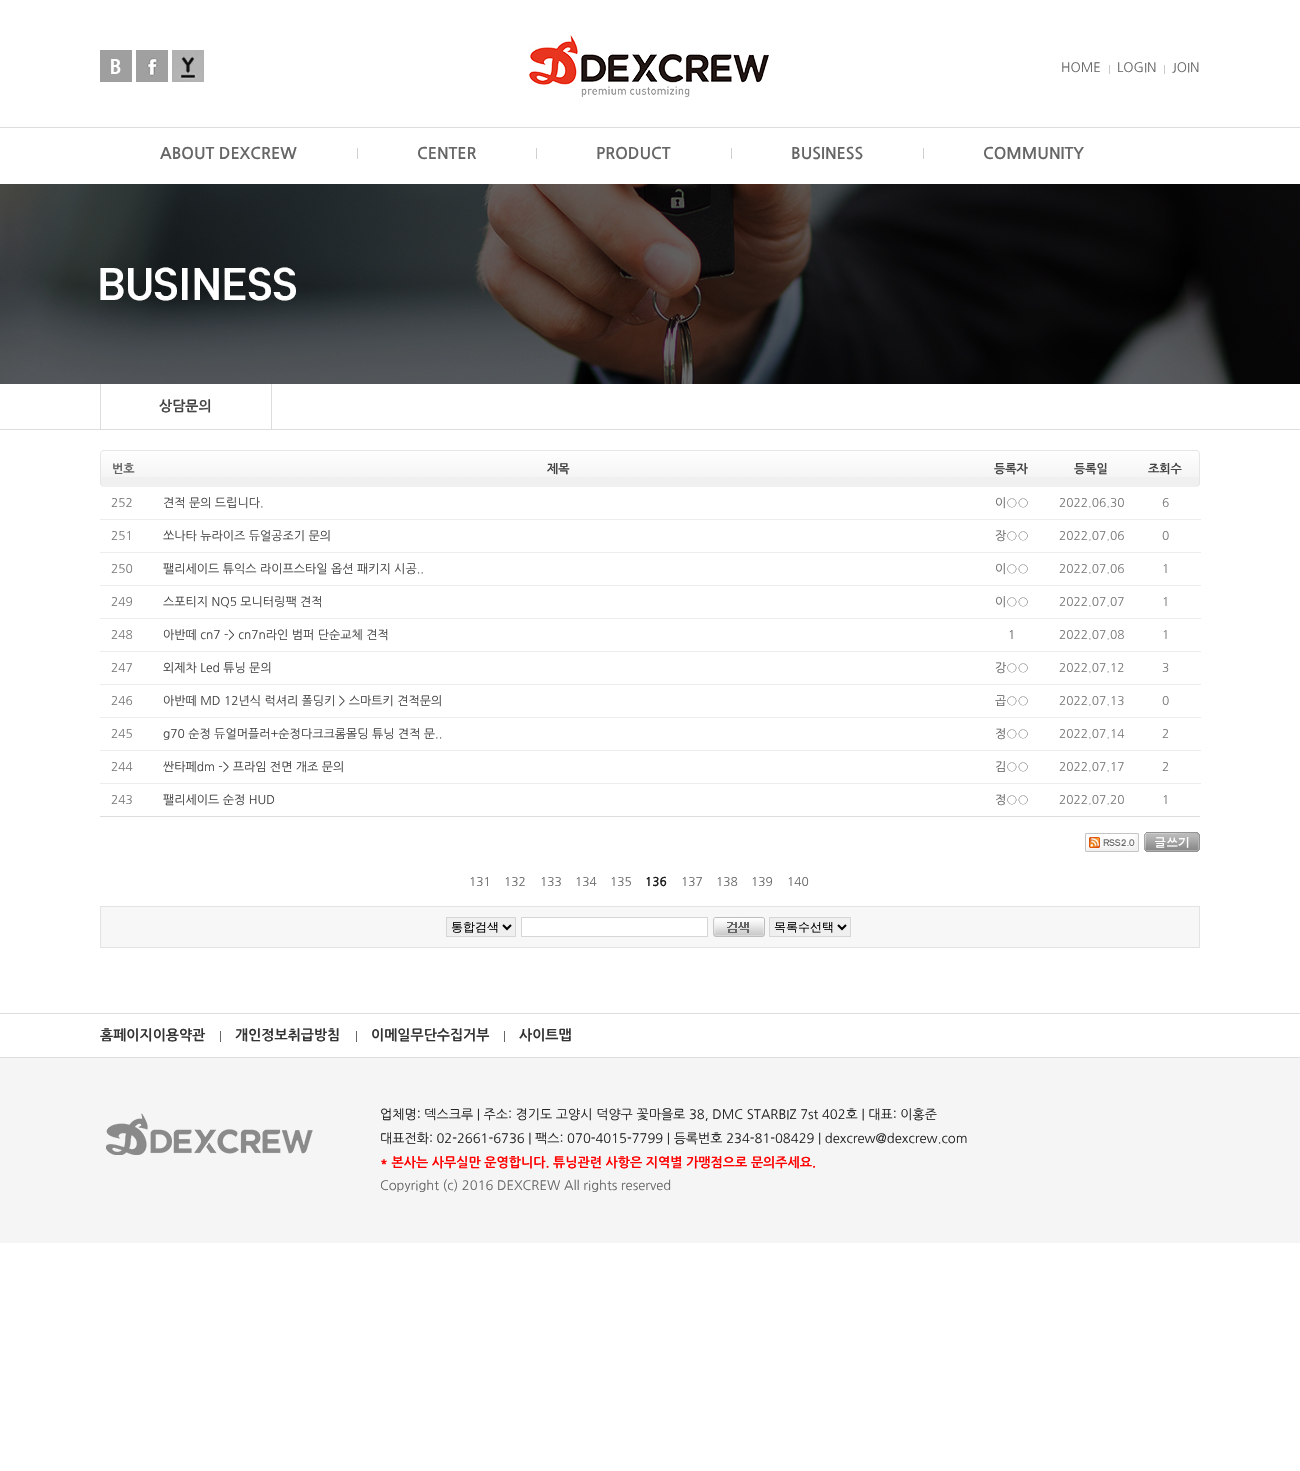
void draw(SkCanvas* canvas) {
	SkPaint paint;
	paint.setAntiAlias(true);
	auto svgPath = [&](const char* data, bool evenOdd = false) {
		SkPath result = *SkParsePath::FromSVGString(data);
		if (evenOdd) result.setFillType(SkPathFillType::kEvenOdd);
		return result;
	};
	canvas->clear(0xffffffff);
	canvas->drawImageRect(SkImages::DeferredFromEncodedData(SkData::MakeFromFileName("img1.png")), SkRect::MakeXYWH(100, 50, 32, 32), SkSamplingOptions());
	canvas->drawImageRect(SkImages::DeferredFromEncodedData(SkData::MakeFromFileName("img2.png")), SkRect::MakeXYWH(136, 50, 32, 32), SkSamplingOptions());
	canvas->drawImageRect(SkImages::DeferredFromEncodedData(SkData::MakeFromFileName("img3.png")), SkRect::MakeXYWH(172, 50, 32, 32), SkSamplingOptions());
	canvas->drawImageRect(SkImages::DeferredFromEncodedData(SkData::MakeFromFileName("img4.png")), SkRect::MakeXYWH(529, 35, 240, 62), SkSamplingOptions());
	SkFont f1(fontMgr->matchFamilyStyle("NanumGothic", SkFontStyle::Normal()), 13);
	f1.setSubpixel(true);
	paint.setColor(0xff666666);
	canvas->drawString("HOME", 1061, 72, f1, paint);
	paint.setColor(0xffc9c9c9);
	canvas->drawRect(SkRect::MakeXYWH(1109, 65, 1, 9), paint);
	paint.setColor(0xff666666);
	canvas->drawString("LOGIN", 1117, 72, f1, paint);
	paint.setColor(0xffc9c9c9);
	canvas->drawRect(SkRect::MakeXYWH(1164, 65, 1, 9), paint);
	paint.setColor(0xff666666);
	canvas->drawString("JOIN", 1172, 72, f1, paint);
	paint.setColor(0xffdddddd);
	canvas->drawRect(SkRect::MakeXYWH(0, 127, 1300, 1), paint);
	SkFont f2(fontMgr->matchFamilyStyle("NanumGothic", SkFontStyle::Bold()), 16);
	f2.setSubpixel(true);
	paint.setColor(0xff666666);
	canvas->drawString("ABOUT DEXCREW", 160, 159, f2, paint);
	paint.setColor(0xffd0d0d0);
	canvas->drawRect(SkRect::MakeXYWH(357, 148, 1, 11), paint);
	paint.setColor(0xff666666);
	canvas->drawString("CENTER", 417, 159, f2, paint);
	paint.setColor(0xffd0d0d0);
	canvas->drawRect(SkRect::MakeXYWH(536, 148, 1, 11), paint);
	paint.setColor(0xff666666);
	canvas->drawString("PRODUCT", 596, 159, f2, paint);
	paint.setColor(0xffd0d0d0);
	canvas->drawRect(SkRect::MakeXYWH(731, 148, 1, 11), paint);
	paint.setColor(0xff666666);
	canvas->drawString("BUSINESS", 791, 159, f2, paint);
	paint.setColor(0xffd0d0d0);
	canvas->drawRect(SkRect::MakeXYWH(923, 148, 1, 11), paint);
	paint.setColor(0xff666666);
	canvas->drawString("COMMUNITY", 983, 159, f2, paint);
	canvas->drawImageRect(SkImages::DeferredFromEncodedData(SkData::MakeFromFileName("img5.png")), SkRect::MakeXYWH(0, 184, 1300, 200), SkSamplingOptions());
	paint.setColor(0xffdddddd);
	canvas->drawRect(SkRect::MakeXYWH(0, 429, 1300, 1), paint);
	canvas->drawRect(SkRect::MakeXYWH(100, 384, 1, 45), paint);
	canvas->drawRect(SkRect::MakeXYWH(271, 384, 1, 45), paint);
	SkFont f3(fontMgr->matchFamilyStyle("NanumGothic", SkFontStyle::Bold()), 14);
	f3.setSubpixel(true);
	paint.setColor(0xff444444);
	canvas->drawString("상담문의", 159, 411, f3, paint);
	paint.setColor(0xfff0f0f0);
	canvas->drawPath(svgPath("M104 450H145V487H104C102 487 100 485 100 483V454C100 452 102 450 104 450Z"), paint);
	canvas->drawImageRect(SkImages::DeferredFromEncodedData(SkData::MakeFromFileName("img6.png")), SkRect::MakeXYWH(100, 451, 45, 26), SkSamplingOptions());
	paint.setColor(0xffe6e6e6);
	canvas->drawPath(svgPath("M104 450H145V487H104C102 487 100 485 100 483V454C100 452 102 450 104 450ZM104 451H145V487H104C102 487 101 485 101 483V454C101 452 102 451 104 451Z", true), paint);
	SkFont f4(fontMgr->matchFamilyStyle("NanumGothic", SkFontStyle::Bold()), 12);
	f4.setSubpixel(true);
	paint.setColor(0xff666666);
	canvas->drawString("번호", 112, 473, f4, paint);
	paint.setColor(0xfff0f0f0);
	canvas->drawRect(SkRect::MakeXYWH(145, 477, 986, 10), paint);
	canvas->drawImageRect(SkImages::DeferredFromEncodedData(SkData::MakeFromFileName("img7.png")), SkRect::MakeXYWH(145, 451, 826, 26), SkSamplingOptions());
	paint.setColor(0xffe6e6e6);
	canvas->drawRect(SkRect::MakeXYWH(145, 450, 986, 1), paint);
	paint.setColor(0xff444444);
	canvas->drawString("제목", 547, 473, f4, paint);
	canvas->drawImageRect(SkImages::DeferredFromEncodedData(SkData::MakeFromFileName("img8.png")), SkRect::MakeXYWH(971, 451, 80, 26), SkSamplingOptions());
	canvas->drawString("등록자", 994, 473, f4, paint);
	canvas->drawImageRect(SkImages::DeferredFromEncodedData(SkData::MakeFromFileName("img8.png")), SkRect::MakeXYWH(1051, 451, 80, 26), SkSamplingOptions());
	canvas->drawString("등록일", 1074, 473, f4, paint);
	paint.setColor(0xfff0f0f0);
	canvas->drawPath(svgPath("M1131 450H1196C1198 450 1200 452 1200 454V483C1200 485 1198 487 1196 487H1131Z"), paint);
	canvas->drawImageRect(SkImages::DeferredFromEncodedData(SkData::MakeFromFileName("img9.png")), SkRect::MakeXYWH(1131, 451, 69, 26), SkSamplingOptions());
	paint.setColor(0xffe6e6e6);
	canvas->drawPath(svgPath("M1131 450H1196C1198 450 1200 452 1200 454V483C1200 485 1198 487 1196 487H1131ZM1131 451H1196C1198 451 1199 452 1199 454V483C1199 485 1198 487 1196 487H1131Z", true), paint);
	paint.setColor(0xff444444);
	canvas->drawString("조회수", 1148, 473, f4, paint);
	paint.setColor(0xffdddddd);
	canvas->drawRect(SkRect::MakeXYWH(100, 816, 1100, 1), paint);
	SkFont f5(fontMgr->matchFamilyStyle("NanumGothic", SkFontStyle::Normal()), 12);
	f5.setSubpixel(true);
	paint.setColor(0xff7a7a7a);
	canvas->drawString("252", 111, 507, f5, paint);
	paint.setColor(0xff444444);
	canvas->drawString("견적 문의 드립니다.", 163, 507, f5, paint);
	paint.setColor(0xff666666);
	canvas->drawString("이○○", 995, 507, f5, paint);
	paint.setColor(0xff7a7a7a);
	canvas->drawString("2022.06.30", 1059, 507, f5, paint);
	paint.setColor(0xffededed);
	canvas->drawRect(SkRect::MakeXYWH(100, 519, 1101, 1), paint);
	paint.setColor(0xff7a7a7a);
	canvas->drawString("6", 1162, 507, f5, paint);
	canvas->drawString("251", 111, 540, f5, paint);
	paint.setColor(0xff444444);
	canvas->drawString("쏘나타 뉴라이즈 듀얼공조기 문의", 163, 540, f5, paint);
	paint.setColor(0xff666666);
	canvas->drawString("장○○", 995, 540, f5, paint);
	paint.setColor(0xff7a7a7a);
	canvas->drawString("2022.07.06", 1059, 540, f5, paint);
	paint.setColor(0xffededed);
	canvas->drawRect(SkRect::MakeXYWH(100, 552, 1101, 1), paint);
	paint.setColor(0xff7a7a7a);
	canvas->drawString("0", 1162, 540, f5, paint);
	canvas->drawString("250", 111, 573, f5, paint);
	paint.setColor(0xff444444);
	canvas->drawString("팰리세이드 튜익스 라이프스타일 옵션 패키지 시공..", 163, 573, f5, paint);
	paint.setColor(0xff666666);
	canvas->drawString("이○○", 995, 573, f5, paint);
	paint.setColor(0xff7a7a7a);
	canvas->drawString("2022.07.06", 1059, 573, f5, paint);
	paint.setColor(0xffededed);
	canvas->drawRect(SkRect::MakeXYWH(100, 585, 1101, 1), paint);
	paint.setColor(0xff7a7a7a);
	canvas->drawString("1", 1162, 573, f5, paint);
	canvas->drawString("249", 111, 606, f5, paint);
	paint.setColor(0xff444444);
	canvas->drawString("스포티지 NQ5 모니터링팩 견적", 163, 606, f5, paint);
	paint.setColor(0xff666666);
	canvas->drawString("이○○", 995, 606, f5, paint);
	paint.setColor(0xff7a7a7a);
	canvas->drawString("2022.07.07", 1059, 606, f5, paint);
	paint.setColor(0xffededed);
	canvas->drawRect(SkRect::MakeXYWH(100, 618, 1101, 1), paint);
	paint.setColor(0xff7a7a7a);
	canvas->drawString("1", 1162, 606, f5, paint);
	canvas->drawString("248", 111, 639, f5, paint);
	paint.setColor(0xff444444);
	canvas->drawString("아반떼 cn7 -> cn7n라인 범퍼 단순교체 견적", 163, 639, f5, paint);
	paint.setColor(0xff666666);
	canvas->drawString("1", 1008, 639, f5, paint);
	paint.setColor(0xff7a7a7a);
	canvas->drawString("2022.07.08", 1059, 639, f5, paint);
	paint.setColor(0xffededed);
	canvas->drawRect(SkRect::MakeXYWH(100, 651, 1101, 1), paint);
	paint.setColor(0xff7a7a7a);
	canvas->drawString("1", 1162, 639, f5, paint);
	canvas->drawString("247", 111, 672, f5, paint);
	paint.setColor(0xff444444);
	canvas->drawString("외제차 Led 튜닝 문의", 163, 672, f5, paint);
	paint.setColor(0xff666666);
	canvas->drawString("강○○", 995, 672, f5, paint);
	paint.setColor(0xff7a7a7a);
	canvas->drawString("2022.07.12", 1059, 672, f5, paint);
	paint.setColor(0xffededed);
	canvas->drawRect(SkRect::MakeXYWH(100, 684, 1101, 1), paint);
	paint.setColor(0xff7a7a7a);
	canvas->drawString("3", 1162, 672, f5, paint);
	canvas->drawString("246", 111, 705, f5, paint);
	paint.setColor(0xff444444);
	canvas->drawString("아반떼 MD 12년식 럭셔리 폴딩키 > 스마트키 견적문의", 163, 705, f5, paint);
	paint.setColor(0xff666666);
	canvas->drawString("곱○○", 995, 705, f5, paint);
	paint.setColor(0xff7a7a7a);
	canvas->drawString("2022.07.13", 1059, 705, f5, paint);
	paint.setColor(0xffededed);
	canvas->drawRect(SkRect::MakeXYWH(100, 717, 1101, 1), paint);
	paint.setColor(0xff7a7a7a);
	canvas->drawString("0", 1162, 705, f5, paint);
	canvas->drawString("245", 111, 738, f5, paint);
	paint.setColor(0xff444444);
	canvas->drawString("g70 순정 듀얼머플러+순정다크크롬몰딩 튜닝 견적 문..", 163, 738, f5, paint);
	paint.setColor(0xff666666);
	canvas->drawString("정○○", 995, 738, f5, paint);
	paint.setColor(0xff7a7a7a);
	canvas->drawString("2022.07.14", 1059, 738, f5, paint);
	paint.setColor(0xffededed);
	canvas->drawRect(SkRect::MakeXYWH(100, 750, 1101, 1), paint);
	paint.setColor(0xff7a7a7a);
	canvas->drawString("2", 1162, 738, f5, paint);
	canvas->drawString("244", 111, 771, f5, paint);
	paint.setColor(0xff444444);
	canvas->drawString("싼타페dm -> 프라임 전면 개조 문의", 163, 771, f5, paint);
	paint.setColor(0xff666666);
	canvas->drawString("김○○", 995, 771, f5, paint);
	paint.setColor(0xff7a7a7a);
	canvas->drawString("2022.07.17", 1059, 771, f5, paint);
	paint.setColor(0xffededed);
	canvas->drawRect(SkRect::MakeXYWH(100, 783, 1101, 1), paint);
	paint.setColor(0xff7a7a7a);
	canvas->drawString("2", 1162, 771, f5, paint);
	canvas->drawString("243", 111, 804, f5, paint);
	paint.setColor(0xff444444);
	canvas->drawString("팰리세이드 순정 HUD", 163, 804, f5, paint);
	paint.setColor(0xff666666);
	canvas->drawString("정○○", 995, 804, f5, paint);
	paint.setColor(0xff7a7a7a);
	canvas->drawString("2022.07.20", 1059, 804, f5, paint);
	canvas->drawString("1", 1162, 804, f5, paint);
	canvas->drawImageRect(SkImages::DeferredFromEncodedData(SkData::MakeFromFileName("img10.png")), SkRect::MakeXYWH(1085, 833, 54, 19), SkSamplingOptions());
	canvas->drawImageRect(SkImages::DeferredFromEncodedData(SkData::MakeFromFileName("img11.png")), SkRect::MakeXYWH(1144, 832, 2, 20), SkSamplingOptions());
	canvas->drawImageRect(SkImages::DeferredFromEncodedData(SkData::MakeFromFileName("img12.png")), SkRect::MakeXYWH(1146, 832, 54, 20), SkSamplingOptions());
	SkFont f6(fontMgr->matchFamilyStyle("Dotum", SkFontStyle::Bold()), 12);
	f6.setSubpixel(true);
	paint.setColor(0xffffffff);
	canvas->drawString("글쓰기", 1154, 847, f6, paint);
	paint.setColor(0xff666666);
	canvas->drawString("131", 469, 886, f5, paint);
	canvas->drawString("132", 504, 886, f5, paint);
	canvas->drawString("133", 540, 886, f5, paint);
	canvas->drawString("134", 575, 886, f5, paint);
	canvas->drawString("135", 610, 886, f5, paint);
	paint.setColor(0xff1c1c1c);
	canvas->drawString("136", 645, 886, f4, paint);
	paint.setColor(0xff666666);
	canvas->drawString("137", 681, 886, f5, paint);
	canvas->drawString("138", 716, 886, f5, paint);
	canvas->drawString("139", 751, 886, f5, paint);
	canvas->drawString("140", 787, 886, f5, paint);
	paint.setColor(0xfff7f7f7);
	canvas->drawRect(SkRect::MakeXYWH(100.5, 906.5, 1099, 41), paint);
	paint.setStroke(true);
	paint.setStrokeWidth(1);
	paint.setColor(0xffe3e3e3);
	canvas->drawRect(SkRect::MakeXYWH(100.5, 906.5, 1099, 41), paint);
	paint.setStroke(false);
	paint.setColor(0xffefefef);
	canvas->drawRect(SkRect::MakeXYWH(446.5, 917.5, 69, 19), paint);
	paint.setStroke(true);
	paint.setColor(0xffd6d6d6);
	canvas->drawRect(SkRect::MakeXYWH(446.5, 917.5, 69, 19), paint);
	paint.setStrokeWidth(2);
	paint.setColor(0xff000000);
	canvas->drawPath(svgPath("M503 925L507 929L511 925"), paint);
	SkFont f7(fontMgr->matchFamilyStyle("WenQuanYi Zen Hei", SkFontStyle(500, SkFontStyle::kNormal_Width, SkFontStyle::kUpright_Slant)), 12);
	f7.setSubpixel(true);
	paint.setStroke(false);
	canvas->drawString("통합검색", 451, 931, f7, paint);
	paint.setColor(0xffffffff);
	canvas->drawRect(SkRect::MakeXYWH(521.5, 917.5, 186, 19), paint);
	paint.setStroke(true);
	paint.setStrokeWidth(1);
	paint.setColor(0xffd6d6d6);
	canvas->drawRect(SkRect::MakeXYWH(521.5, 917.5, 186, 19), paint);
	canvas->drawImageRect(SkImages::DeferredFromEncodedData(SkData::MakeFromFileName("img13.png")), SkRect::MakeXYWH(713, 917, 52, 20), SkSamplingOptions());
	paint.setStroke(false);
	paint.setColor(0xffefefef);
	canvas->drawRect(SkRect::MakeXYWH(769.5, 917.5, 81, 19), paint);
	paint.setStroke(true);
	paint.setColor(0xffd6d6d6);
	canvas->drawRect(SkRect::MakeXYWH(769.5, 917.5, 81, 19), paint);
	paint.setStrokeWidth(2);
	paint.setColor(0xff000000);
	canvas->drawPath(svgPath("M838 925L842 929L846 925"), paint);
	paint.setStroke(false);
	canvas->drawString("목록수선택", 774, 931, f7, paint);
	paint.setColor(0xffdddddd);
	canvas->drawRect(SkRect::MakeXYWH(0, 1013, 1300, 1), paint);
	canvas->drawRect(SkRect::MakeXYWH(0, 1057, 1300, 1), paint);
	paint.setColor(0xff333333);
	canvas->drawString("홈페이지이용약관", 100, 1040, f3, paint);
	paint.setColor(0xff666666);
	canvas->drawRect(SkRect::MakeXYWH(220, 1031, 1, 11), paint);
	paint.setColor(0xff333333);
	canvas->drawString("개인정보취급방침", 235, 1040, f3, paint);
	paint.setColor(0xff666666);
	canvas->drawRect(SkRect::MakeXYWH(356, 1031, 1, 11), paint);
	paint.setColor(0xff333333);
	canvas->drawString("이메일무단수집거부", 371, 1040, f3, paint);
	paint.setColor(0xff666666);
	canvas->drawRect(SkRect::MakeXYWH(504, 1031, 1, 11), paint);
	paint.setColor(0xff333333);
	canvas->drawString("사이트맵", 519, 1040, f3, paint);
	paint.setColor(0xfff5f5f5);
	canvas->drawRect(SkRect::MakeXYWH(0, 1058, 1300, 185), paint);
	canvas->drawImageRect(SkImages::DeferredFromEncodedData(SkData::MakeFromFileName("img14.png")), SkRect::MakeXYWH(106, 1113, 207, 42), SkSamplingOptions());
	paint.setColor(0xff232323);
	canvas->drawString("업체명: 덱스크루 | 주소: 경기도 고양시 덕양구 꽃마을로 38, DMC STARBIZ 7st 402호 | 대표: 이홍준", 380, 1119, f1, paint);
	canvas->drawString("대표전화: 02-2661-6736 | 팩스: 070-4015-7799 | 등록번호 234-81-08429 | dexcrew@dexcrew.com", 380, 1143, f1, paint);
	SkFont f8(fontMgr->matchFamilyStyle("NanumGothic", SkFontStyle::Bold()), 13);
	f8.setSubpixel(true);
	paint.setColor(0xffff0000);
	canvas->drawString("* 본사는 사무실만 운영합니다. 튜닝관련 사항은 지역별 가맹점으로 문의주세요.", 380, 1167, f8, paint);
	paint.setColor(0xff666666);
	canvas->drawString("Copyright (c) 2016 DEXCREW All rights reserved", 380, 1190, f1, paint);
}
